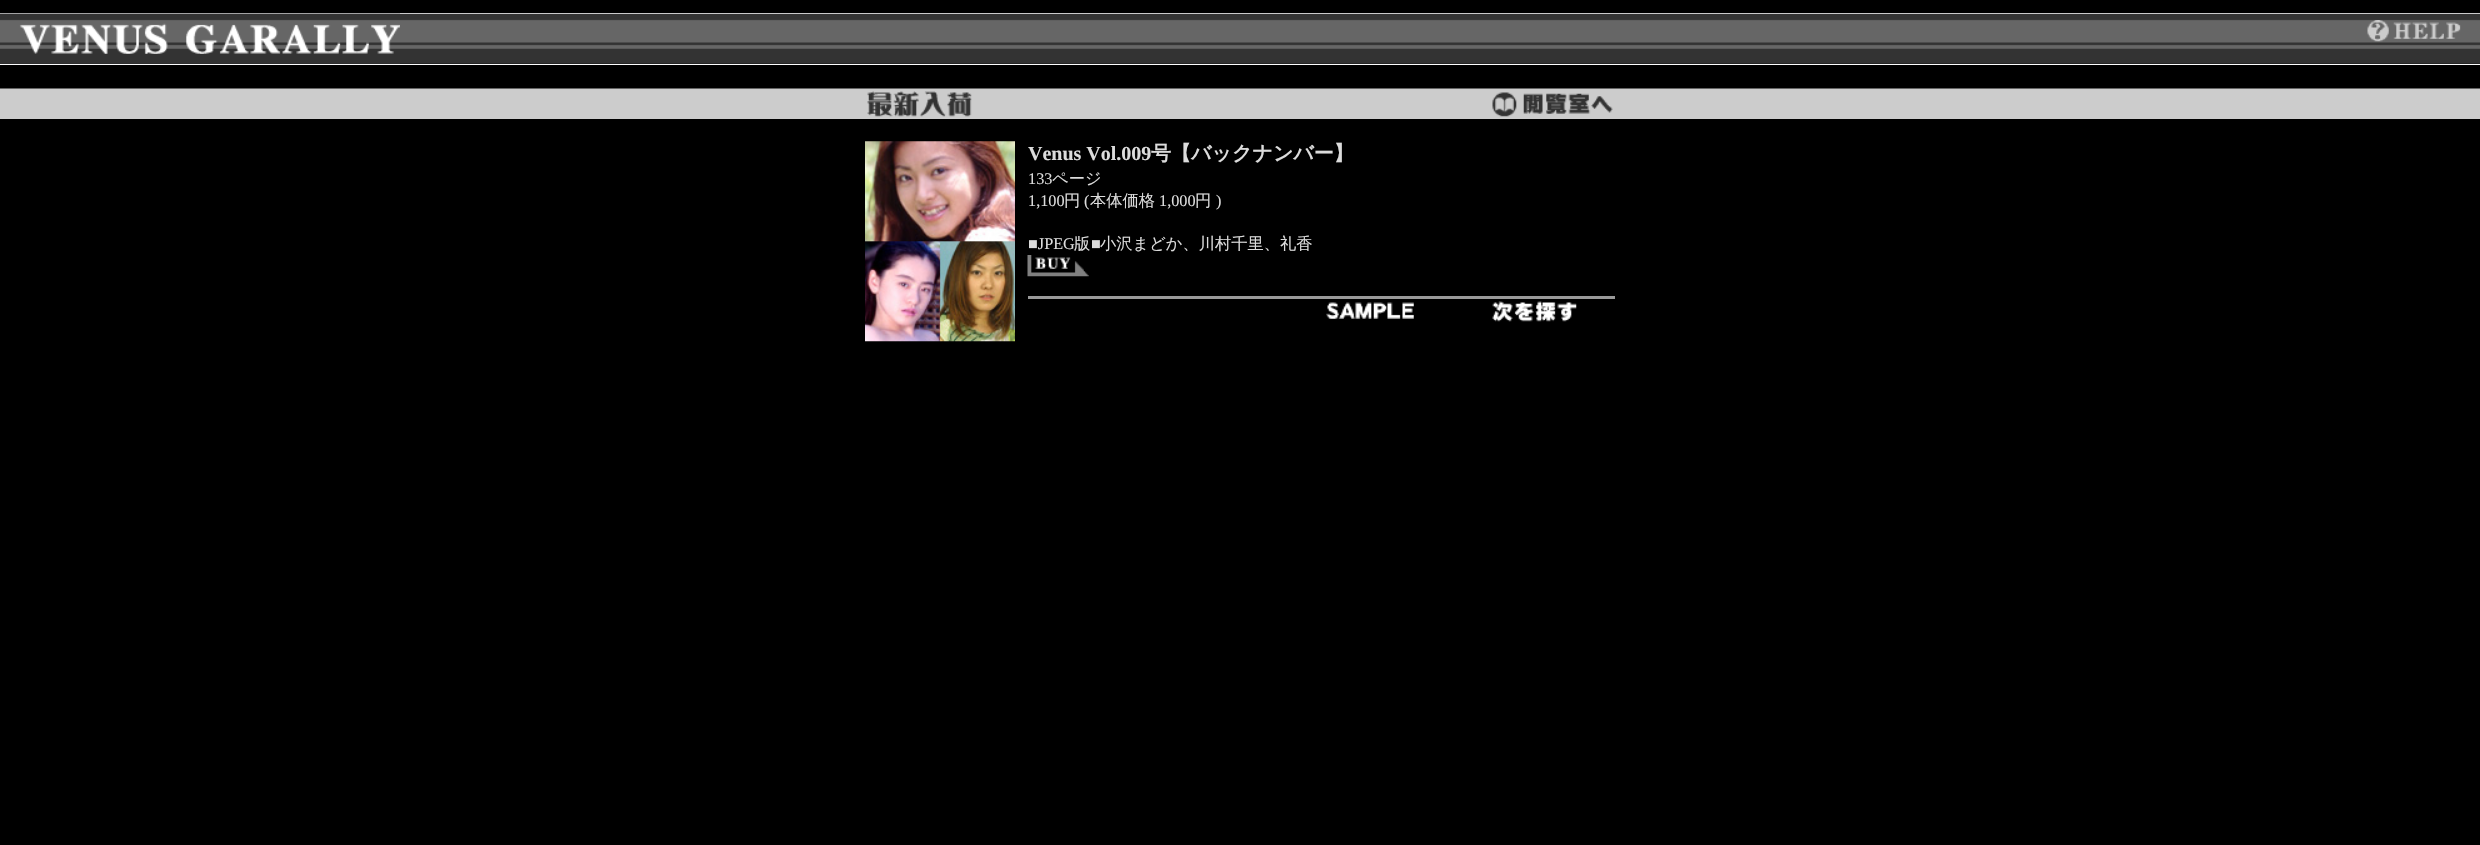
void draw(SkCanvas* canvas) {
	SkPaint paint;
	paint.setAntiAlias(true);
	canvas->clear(0xff000000);
	paint.setColor(0xfffefeff);
	canvas->drawRect(SkRect::MakeXYWH(0, 13, 2480, 1), paint);
	canvas->drawImageRect(SkImages::DeferredFromEncodedData(SkData::MakeFromFileName("img1.png")), SkRect::MakeXYWH(0, 13, 1935, 51), SkSamplingOptions());
	canvas->drawImageRect(SkImages::DeferredFromEncodedData(SkData::MakeFromFileName("img2.png")), SkRect::MakeXYWH(0, 13, 400, 51), SkSamplingOptions());
	canvas->drawImageRect(SkImages::DeferredFromEncodedData(SkData::MakeFromFileName("img3.png")), SkRect::MakeXYWH(1935, 13, 545, 51), SkSamplingOptions());
	canvas->drawImageRect(SkImages::DeferredFromEncodedData(SkData::MakeFromFileName("img4.png")), SkRect::MakeXYWH(2367, 20, 94, 22), SkSamplingOptions());
	canvas->drawRect(SkRect::MakeXYWH(0, 64, 2480, 1), paint);
	paint.setColor(0xff666666);
	canvas->drawRect(SkRect::MakeXYWH(0, 88, 2480, 1), paint);
	paint.setColor(0xffcccccc);
	canvas->drawRect(SkRect::MakeXYWH(0, 89, 2480, 30), paint);
	canvas->drawImageRect(SkImages::DeferredFromEncodedData(SkData::MakeFromFileName("img5.png")), SkRect::MakeXYWH(867, 91, 105, 26), SkSamplingOptions());
	canvas->drawImageRect(SkImages::DeferredFromEncodedData(SkData::MakeFromFileName("img6.png")), SkRect::MakeXYWH(1492, 92, 121, 25), SkSamplingOptions());
	canvas->drawImageRect(SkImages::DeferredFromEncodedData(SkData::MakeFromFileName("img7.png")), SkRect::MakeXYWH(865, 141, 150, 201), SkSamplingOptions());
	SkFont f1(fontMgr->matchFamilyStyle("Liberation Serif", SkFontStyle::Bold()), 20);
	f1.setSubpixel(true);
	paint.setColor(0xffdcdcdc);
	canvas->drawString("Venus Vol.009", 1028, 160, f1, paint);
	SkFont f2(fontMgr->matchFamilyStyle("WenQuanYi Zen Hei", SkFontStyle::Bold()), 20);
	f2.setSubpixel(true);
	canvas->drawString("号【バックナンバー】", 1151, 160, f2, paint);
	SkFont f3(fontMgr->matchFamilyStyle("Liberation Serif", SkFontStyle::Normal()), 16.25);
	f3.setSubpixel(true);
	canvas->drawString("133", 1028, 184, f3, paint);
	SkFont f4(fontMgr->matchFamilyStyle("WenQuanYi Zen Hei", SkFontStyle(500, SkFontStyle::kNormal_Width, SkFontStyle::kUpright_Slant)), 16.25);
	f4.setSubpixel(true);
	canvas->drawString("ページ", 1052, 184, f4, paint);
	canvas->drawString("1,100", 1028, 206, f3, paint);
	canvas->drawString("円", 1064, 206, f4, paint);
	canvas->drawString("(", 1084, 206, f3, paint);
	canvas->drawString("本体価格", 1090, 206, f4, paint);
	canvas->drawString("1,000", 1159, 206, f3, paint);
	canvas->drawString("円", 1195, 206, f4, paint);
	canvas->drawString(")", 1216, 206, f3, paint);
	canvas->drawString("■JPEG", 1028, 249, f3, paint);
	canvas->drawString("版", 1074, 249, f4, paint);
	canvas->drawString("■", 1091, 249, f3, paint);
	canvas->drawString("小沢まどか、川村千里、礼香", 1100, 249, f4, paint);
	canvas->drawImageRect(SkImages::DeferredFromEncodedData(SkData::MakeFromFileName("img8.png")), SkRect::MakeXYWH(1027, 255, 62, 22), SkSamplingOptions());
	paint.setColor(0xff999999);
	canvas->drawRect(SkRect::MakeXYWH(1028, 296, 587, 3), paint);
	canvas->drawImageRect(SkImages::DeferredFromEncodedData(SkData::MakeFromFileName("img9.png")), SkRect::MakeXYWH(1326, 302, 88, 17), SkSamplingOptions());
	canvas->drawImageRect(SkImages::DeferredFromEncodedData(SkData::MakeFromFileName("img10.png")), SkRect::MakeXYWH(1492, 301, 85, 21), SkSamplingOptions());
}
